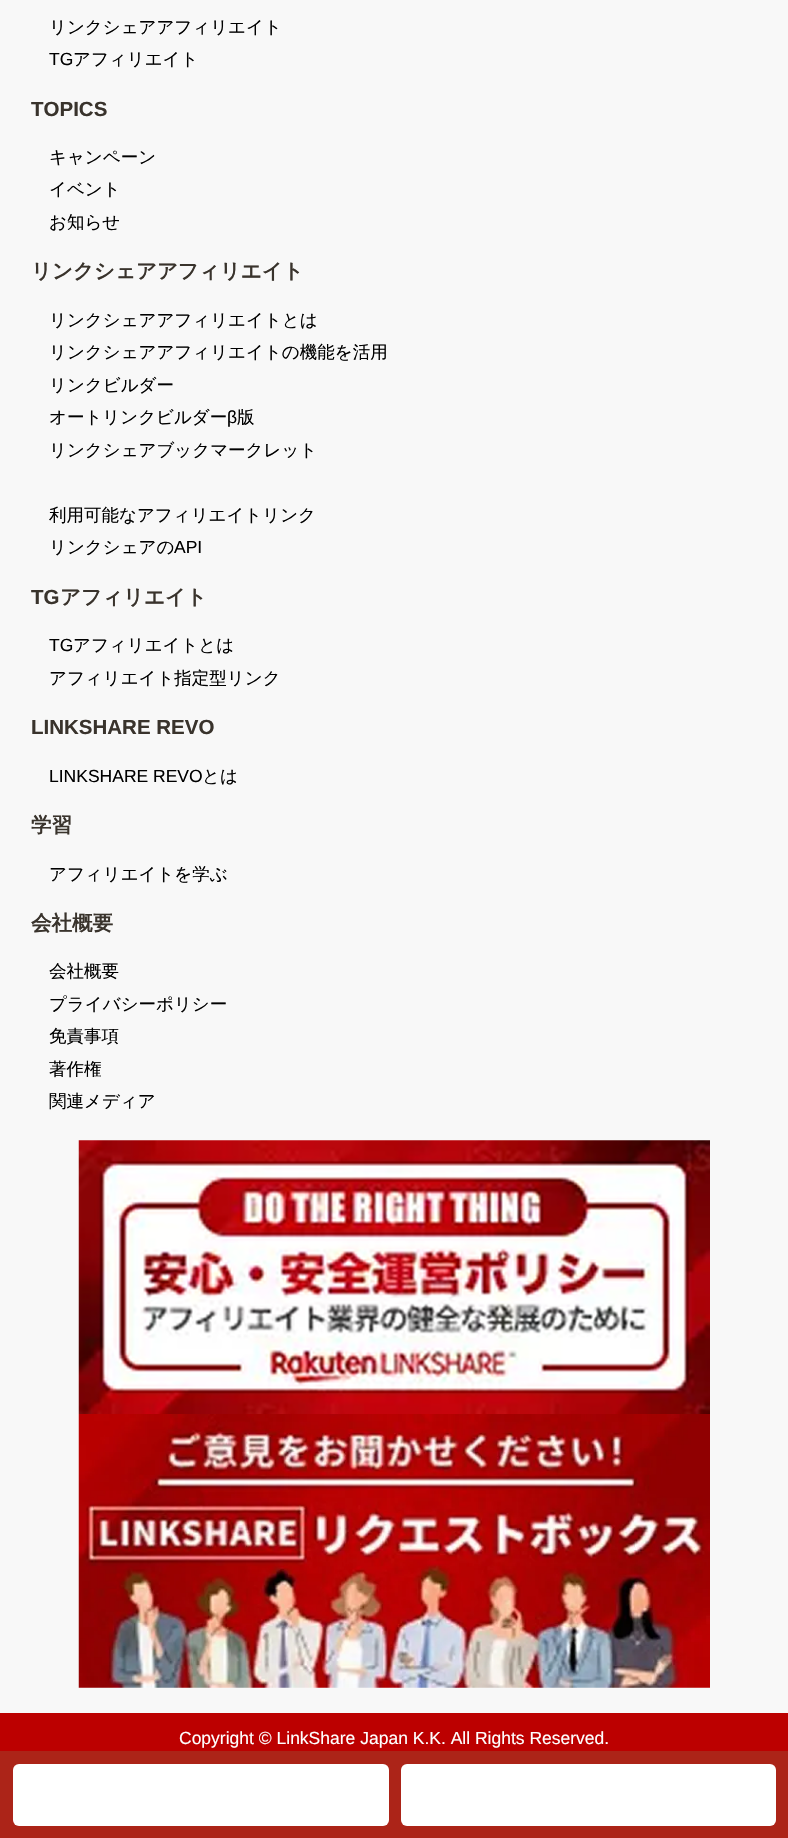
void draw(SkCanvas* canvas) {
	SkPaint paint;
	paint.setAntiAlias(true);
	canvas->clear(0xffbc0000);
	paint.setColor(0xfff8f8f8);
	canvas->drawRect(SkRect::MakeXYWH(0, 0, 788, 1713), paint);
	SkFont f1(fontMgr->matchFamilyStyle("WenQuanYi Zen Hei", SkFontStyle(500, SkFontStyle::kNormal_Width, SkFontStyle::kUpright_Slant)), 17.5);
	f1.setSubpixel(true);
	paint.setColor(0xff000000);
	canvas->drawString("リンクシェアアフィリエイト", 49, 33, f1, paint);
	SkFont f2(fontMgr->matchFamilyStyle("Liberation Sans", SkFontStyle::Normal()), 17.5);
	f2.setSubpixel(true);
	canvas->drawString("TG", 49, 65, f2, paint);
	canvas->drawString("アフィリエイト", 73, 65, f1, paint);
	SkFont f3(fontMgr->matchFamilyStyle("Liberation Sans", SkFontStyle::Bold()), 20.5);
	f3.setSubpixel(true);
	paint.setColor(0xff39332c);
	canvas->drawString("TOPICS", 31, 116, f3, paint);
	paint.setColor(0xff000000);
	canvas->drawString("キャンペーン", 49, 163, f1, paint);
	canvas->drawString("イベント", 49, 195, f1, paint);
	canvas->drawString("お知らせ", 49, 228, f1, paint);
	SkFont f4(fontMgr->matchFamilyStyle("WenQuanYi Zen Hei", SkFontStyle::Bold()), 20.5);
	f4.setSubpixel(true);
	paint.setColor(0xff39332c);
	canvas->drawString("リンクシェアアフィリエイト", 31, 278, f4, paint);
	paint.setColor(0xff000000);
	canvas->drawString("リンクシェアアフィリエイトとは", 49, 326, f1, paint);
	canvas->drawString("リンクシェアアフィリエイトの機能を活用", 49, 358, f1, paint);
	canvas->drawString("リンクビルダー", 49, 391, f1, paint);
	canvas->drawString("オートリンクビルダー", 49, 423, f1, paint);
	canvas->drawString("β", 227, 423, f2, paint);
	canvas->drawString("版", 237, 423, f1, paint);
	canvas->drawString("リンクシェアブックマークレット", 49, 456, f1, paint);
	canvas->drawString("利用可能なアフィリエイトリンク", 49, 521, f1, paint);
	canvas->drawString("リンクシェアの", 49, 553, f1, paint);
	canvas->drawString("API", 174, 553, f2, paint);
	paint.setColor(0xff39332c);
	canvas->drawString("TG", 31, 604, f3, paint);
	canvas->drawString("アフィリエイト", 60, 604, f4, paint);
	paint.setColor(0xff000000);
	canvas->drawString("TG", 49, 651, f2, paint);
	canvas->drawString("アフィリエイトとは", 73, 651, f1, paint);
	canvas->drawString("アフィリエイト指定型リンク", 49, 684, f1, paint);
	paint.setColor(0xff39332c);
	canvas->drawString("LINKSHARE REVO", 31, 734, f3, paint);
	paint.setColor(0xff000000);
	canvas->drawString("LINKSHARE REVO", 49, 782, f2, paint);
	canvas->drawString("とは", 202, 782, f1, paint);
	paint.setColor(0xff39332c);
	canvas->drawString("学習", 31, 832, f4, paint);
	paint.setColor(0xff000000);
	canvas->drawString("アフィリエイトを学ぶ", 49, 880, f1, paint);
	paint.setColor(0xff39332c);
	canvas->drawString("会社概要", 31, 930, f4, paint);
	paint.setColor(0xff000000);
	canvas->drawString("会社概要", 49, 977, f1, paint);
	canvas->drawString("プライバシーポリシー", 49, 1010, f1, paint);
	canvas->drawString("免責事項", 49, 1042, f1, paint);
	canvas->drawString("著作権", 49, 1075, f1, paint);
	canvas->drawString("関連メディア", 49, 1107, f1, paint);
	canvas->drawImageRect(SkImages::DeferredFromEncodedData(SkData::MakeFromFileName("img1.png")), SkRect::MakeXYWH(78, 1140, 632, 274), SkSamplingOptions());
	canvas->drawImageRect(SkImages::DeferredFromEncodedData(SkData::MakeFromFileName("img2.png")), SkRect::MakeXYWH(78, 1414, 632, 274), SkSamplingOptions());
	paint.setColor(0xffffffff);
	canvas->drawString("Copyright © LinkShare Japan K.K. All Rights Reserved.", 179, 1744, f2, paint);
	paint.setColor(0xffac2418);
	canvas->drawRect(SkRect::MakeXYWH(0, 1751, 788, 87), paint);
	paint.setColor(0xffffffff);
	canvas->drawRoundRect(SkRect::MakeXYWH(13, 1764, 376, 62), 6, 6, paint);
	canvas->drawRoundRect(SkRect::MakeXYWH(401, 1764, 375, 62), 6, 6, paint);
}
